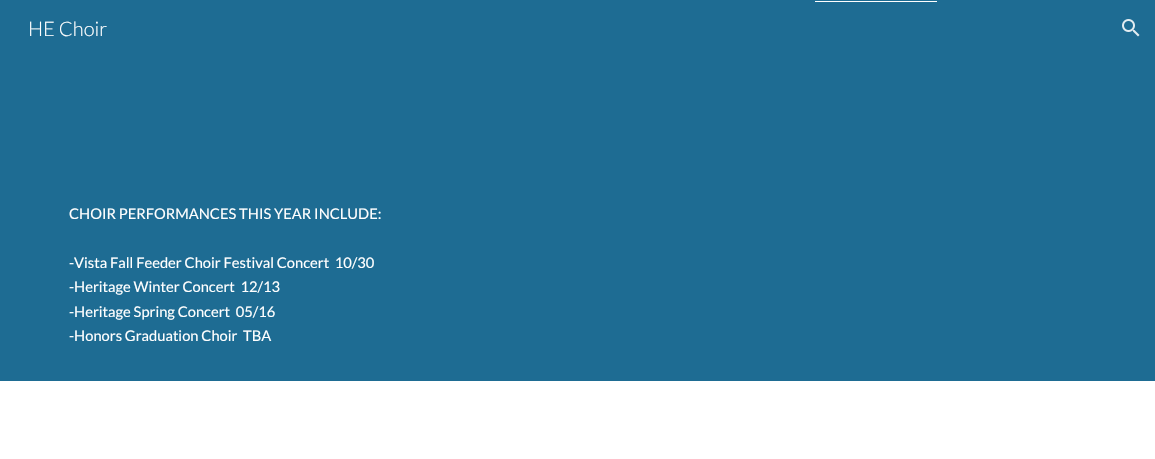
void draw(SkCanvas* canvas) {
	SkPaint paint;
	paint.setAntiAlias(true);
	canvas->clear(0xffffffff);
	paint.setColor(0xff1e6c93);
	canvas->drawRect(SkRect::MakeXYWH(0, 0, 1155, 381), paint);
	SkFont f1(fontMgr->matchFamilyStyle("Lato", SkFontStyle(300, SkFontStyle::kNormal_Width, SkFontStyle::kUpright_Slant)), 20);
	f1.setSubpixel(true);
	paint.setColor(0xffffffff);
	canvas->drawString("HE Choir", 28, 36, f1, paint);
	canvas->drawImageRect(SkImages::DeferredFromEncodedData(SkData::MakeFromFileName("img1.png")), SkRect::MakeXYWH(1122, 19, 18, 18), SkSamplingOptions());
	canvas->drawRect(SkRect::MakeXYWH(815, 1, 122, 1), paint);
	SkFont f2(fontMgr->matchFamilyStyle("Lato", SkFontStyle::Normal()), 14.7);
	f2.setSubpixel(true);
	canvas->drawString("CHOIR PERFORMANCES THIS YEAR INCLUDE:", 69, 219, f2, paint);
	canvas->drawString("-Vista Fall Feeder Choir Festival Concert  10/30", 69, 268, f2, paint);
	canvas->drawString("-Heritage Winter Concert  12/13", 69, 292, f2, paint);
	canvas->drawString("-Heritage Spring Concert  05/16", 69, 317, f2, paint);
	canvas->drawString("-Honors Graduation Choir  TBA", 69, 341, f2, paint);
}
